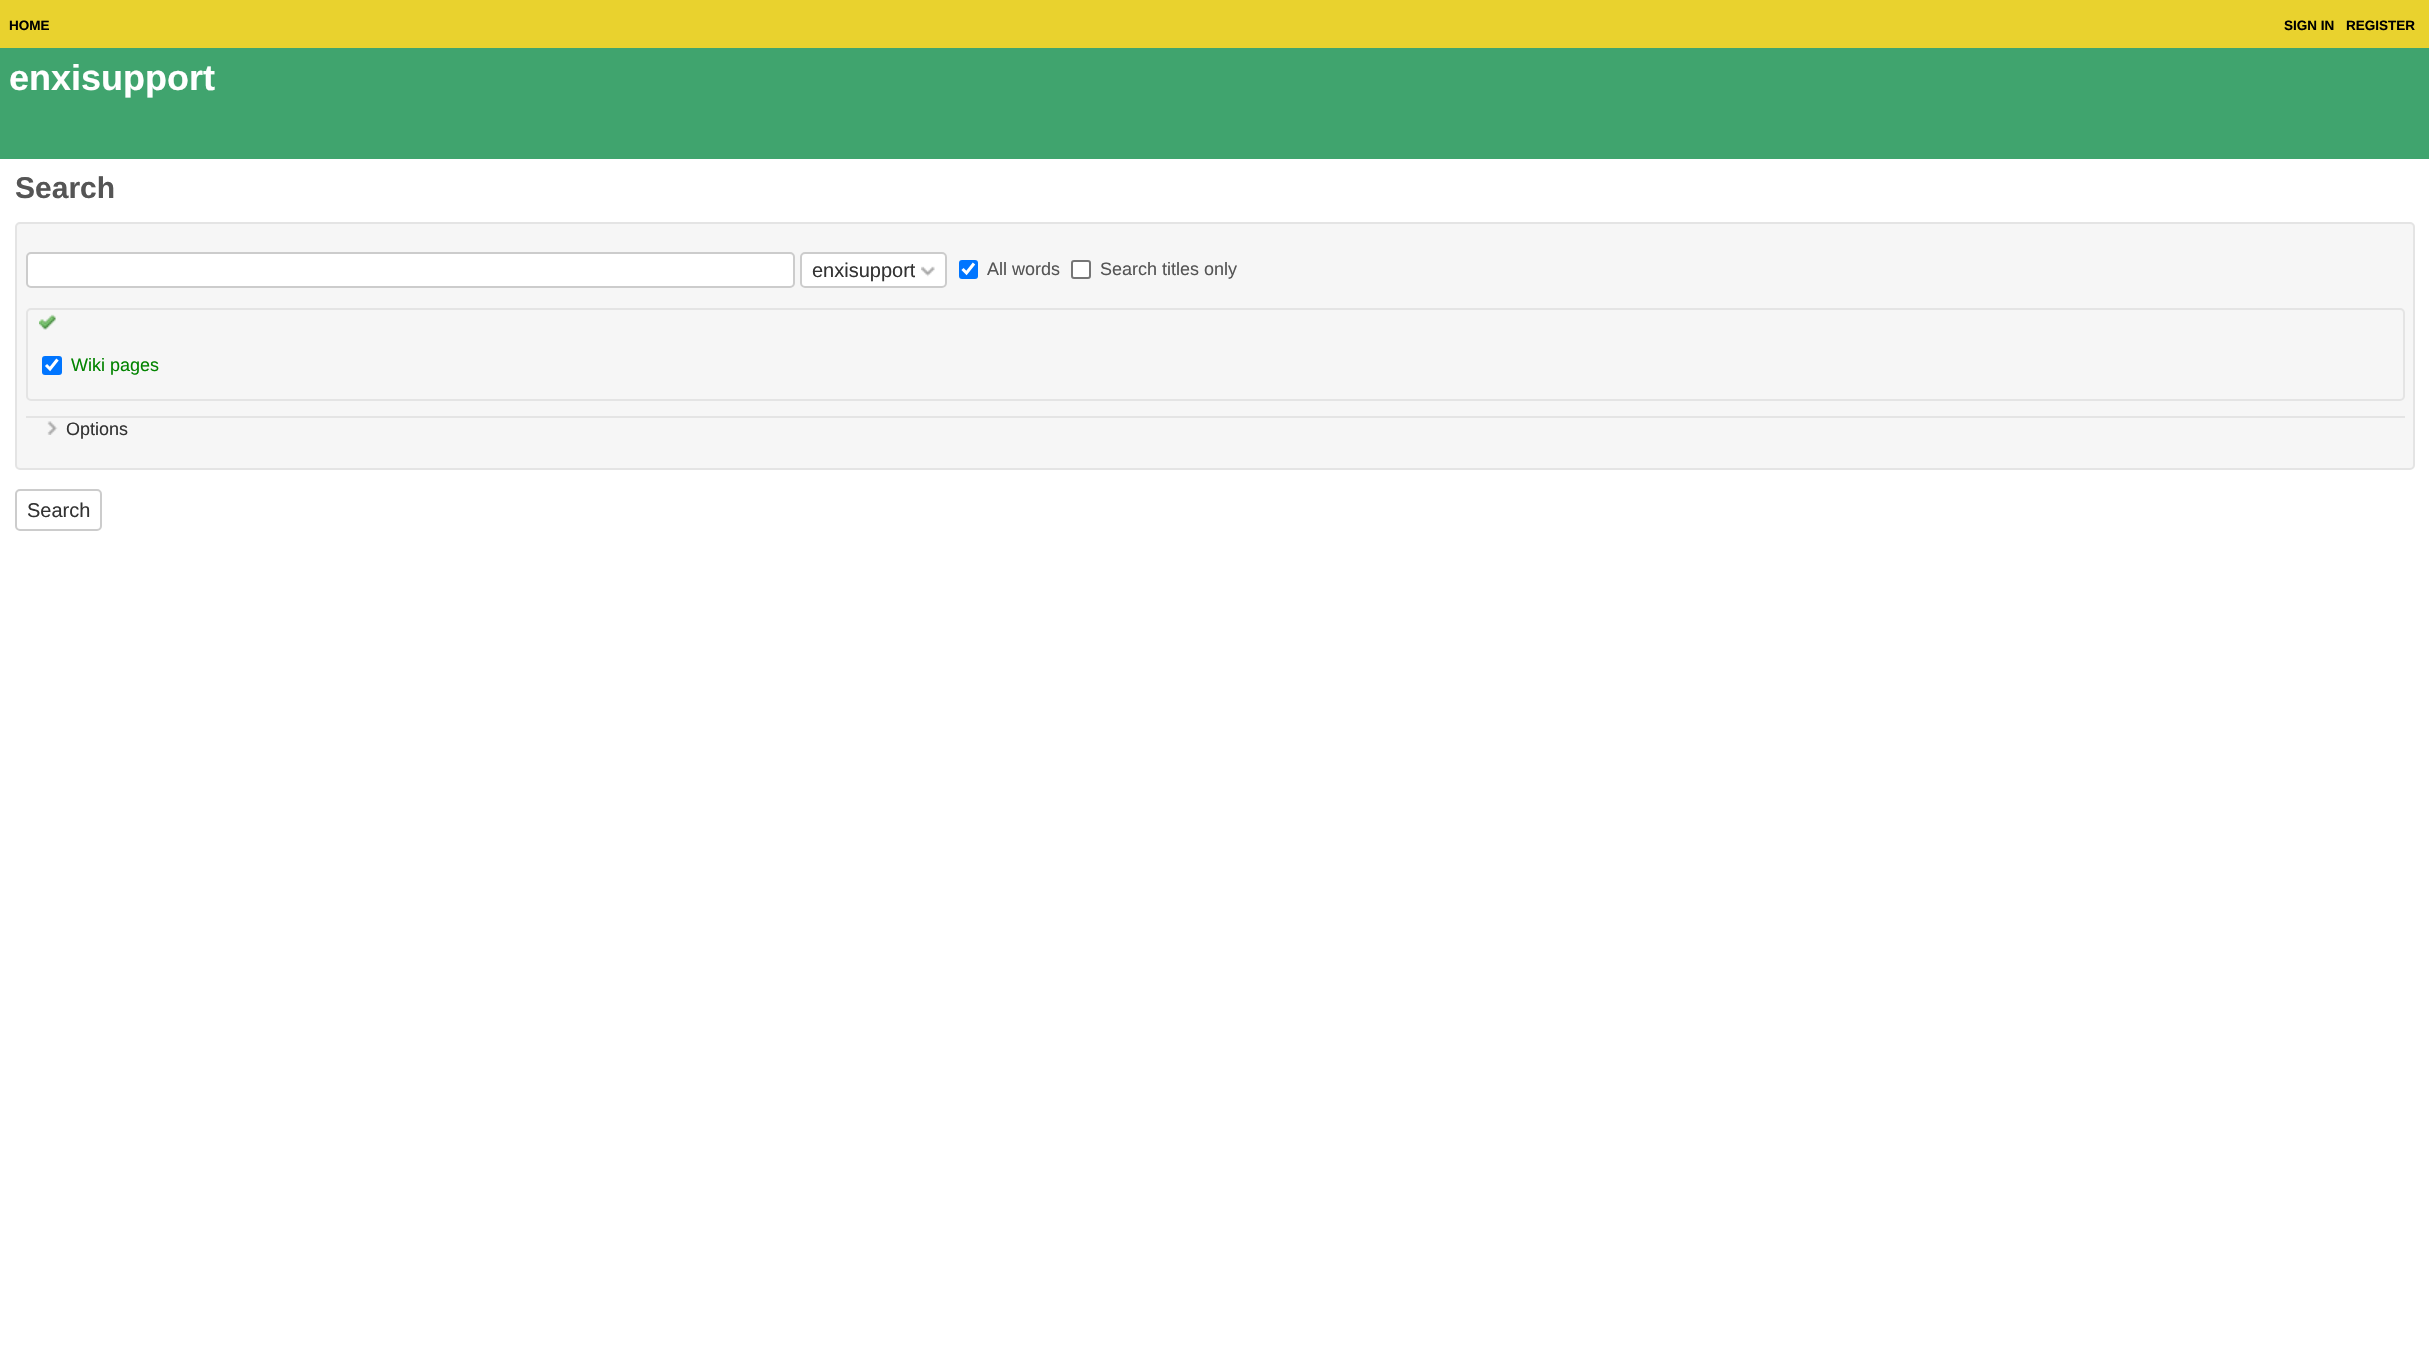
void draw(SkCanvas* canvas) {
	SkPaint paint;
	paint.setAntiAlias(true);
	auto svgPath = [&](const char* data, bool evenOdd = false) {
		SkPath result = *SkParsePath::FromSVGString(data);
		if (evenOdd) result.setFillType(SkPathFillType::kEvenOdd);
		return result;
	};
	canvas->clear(0xffffffff);
	paint.setColor(0xffe9d22e);
	canvas->drawRect(SkRect::MakeXYWH(0, 0, 2429, 48), paint);
	SkFont f1(fontMgr->matchFamilyStyle("Liberation Sans", SkFontStyle::Bold()), 13.5);
	f1.setSubpixel(true);
	paint.setColor(0xff000000);
	canvas->drawString("HOME", 9, 30, f1, paint);
	canvas->drawString("SIGN IN", 2284, 30, f1, paint);
	canvas->drawString("REGISTER", 2346, 30, f1, paint);
	paint.setColor(0xff40a46e);
	canvas->drawRect(SkRect::MakeXYWH(0, 48, 2429, 111), paint);
	SkFont f2(fontMgr->matchFamilyStyle("Liberation Sans", SkFontStyle::Bold()), 36);
	f2.setSubpixel(true);
	paint.setColor(0xffffffff);
	canvas->drawString("enxisupport", 9, 90, f2, paint);
	SkFont f3(fontMgr->matchFamilyStyle("Liberation Sans", SkFontStyle::Bold()), 30);
	f3.setSubpixel(true);
	paint.setColor(0xff555555);
	canvas->drawString("Search", 15, 198, f3, paint);
	paint.setColor(0xfff6f6f6);
	canvas->drawRoundRect(SkRect::MakeXYWH(16, 223, 2398, 246), 4, 4, paint);
	paint.setStroke(true);
	paint.setStrokeWidth(2);
	paint.setColor(0xffe4e4e4);
	canvas->drawRoundRect(SkRect::MakeXYWH(16, 223, 2398, 246), 4, 4, paint);
	paint.setStroke(false);
	paint.setColor(0xffffffff);
	canvas->drawRoundRect(SkRect::MakeXYWH(27, 253, 767, 34), 4, 4, paint);
	paint.setStroke(true);
	paint.setColor(0xffcccccc);
	canvas->drawRoundRect(SkRect::MakeXYWH(27, 253, 767, 34), 4, 4, paint);
	paint.setStroke(false);
	paint.setColor(0xffffffff);
	canvas->drawRoundRect(SkRect::MakeXYWH(800, 252, 147, 36), 5, 5, paint);
	canvas->drawImageRect(SkImages::DeferredFromEncodedData(SkData::MakeFromFileName("img1.png")), SkRect::MakeXYWH(921, 266, 14, 11), SkSamplingOptions());
	paint.setStroke(true);
	paint.setColor(0xffcccccc);
	canvas->drawRoundRect(SkRect::MakeXYWH(801, 253, 145, 34), 4, 4, paint);
	canvas->save();
	canvas->clipRect(SkRect::MakeXYWH(812, 260, 103, 22));
	SkFont f4(fontMgr->matchFamilyStyle("Liberation Sans", SkFontStyle::Normal()), 20);
	f4.setSubpixel(true);
	paint.setStroke(false);
	paint.setColor(0xff333333);
	canvas->drawString("enxisupport", 812, 277, f4, paint);
	canvas->restore();
	paint.setColor(0xff0075ff);
	canvas->drawRoundRect(SkRect::MakeXYWH(959, 260, 19, 19), 3, 3, paint);
	paint.setStroke(true);
	paint.setStrokeWidth(3.1);
	paint.setColor(0xffffffff);
	canvas->drawPath(svgPath("M962.5 269L966.5 273L974 263.5"), paint);
	SkFont f5(fontMgr->matchFamilyStyle("Liberation Sans", SkFontStyle::Normal()), 18);
	f5.setSubpixel(true);
	paint.setStroke(false);
	paint.setColor(0xff555555);
	canvas->drawString("All words", 987, 275, f5, paint);
	paint.setColor(0xffffffff);
	canvas->drawRoundRect(SkRect::MakeXYWH(1072, 261, 18, 17), 2, 2, paint);
	paint.setStroke(true);
	paint.setStrokeWidth(2);
	paint.setColor(0xff767676);
	canvas->drawRoundRect(SkRect::MakeXYWH(1072, 261, 18, 17), 2, 2, paint);
	paint.setStroke(false);
	paint.setColor(0xff555555);
	canvas->drawString("Search titles only", 1100, 275, f5, paint);
	paint.setStroke(true);
	paint.setColor(0xffe4e4e4);
	canvas->drawRoundRect(SkRect::MakeXYWH(27, 309, 2377, 91), 4, 4, paint);
	canvas->drawImageRect(SkImages::DeferredFromEncodedData(SkData::MakeFromFileName("img2.png")), SkRect::MakeXYWH(39, 314, 17, 16), SkSamplingOptions());
	paint.setStroke(false);
	paint.setColor(0xff0075ff);
	canvas->drawRoundRect(SkRect::MakeXYWH(42, 356, 20, 19), 3, 3, paint);
	paint.setStroke(true);
	paint.setStrokeWidth(3.1);
	paint.setColor(0xffffffff);
	canvas->drawPath(svgPath("M46 365L50 369L57.5 359.5"), paint);
	paint.setStroke(false);
	paint.setColor(0xff028400);
	canvas->drawString("Wiki pages", 71, 371, f5, paint);
	paint.setColor(0xffe4e4e4);
	canvas->drawRect(SkRect::MakeXYWH(26, 416, 2379, 2), paint);
	canvas->drawImageRect(SkImages::DeferredFromEncodedData(SkData::MakeFromFileName("img3.png")), SkRect::MakeXYWH(47, 421, 11, 14), SkSamplingOptions());
	paint.setColor(0xff333333);
	canvas->drawString("Options", 66, 435, f5, paint);
	paint.setStroke(true);
	paint.setStrokeWidth(2);
	paint.setColor(0xffcccccc);
	canvas->drawRoundRect(SkRect::MakeXYWH(16, 490, 85, 40), 4, 4, paint);
	paint.setStroke(false);
	paint.setColor(0xff333333);
	canvas->drawString("Search", 27, 517, f4, paint);
}
